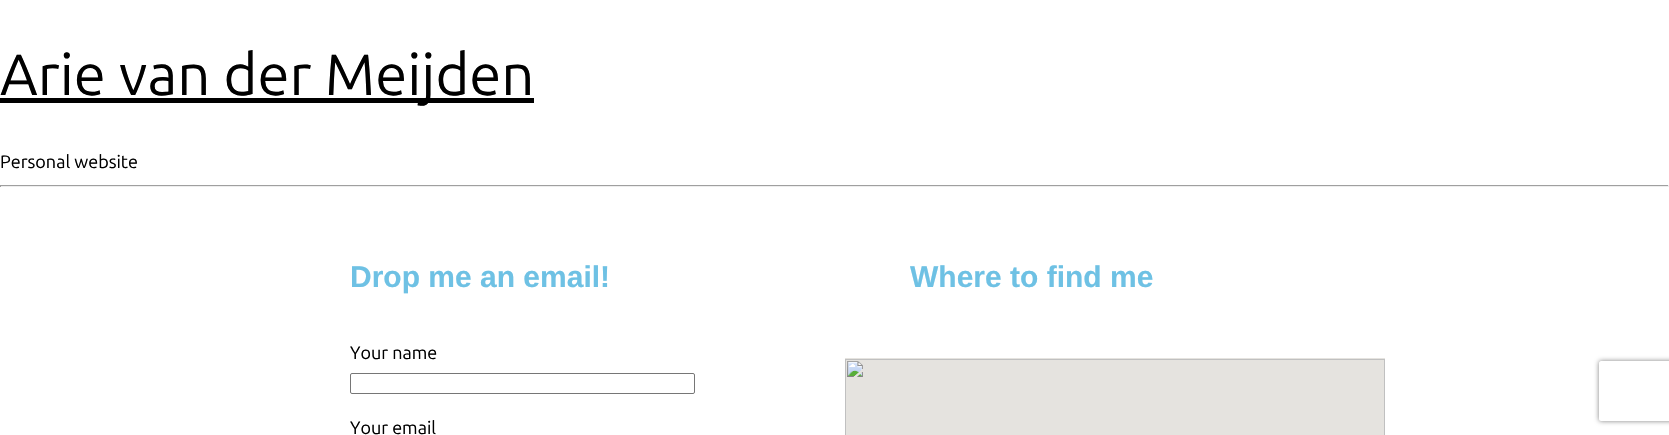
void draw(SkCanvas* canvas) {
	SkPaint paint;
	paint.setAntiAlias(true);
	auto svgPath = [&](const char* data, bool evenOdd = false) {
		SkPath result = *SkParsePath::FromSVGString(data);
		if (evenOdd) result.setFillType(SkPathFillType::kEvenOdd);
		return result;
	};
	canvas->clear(0xffffffff);
	paint.setColor(0xff000000);
	canvas->drawRect(SkRect::MakeXYWH(0, 98, 534, 5), paint);
	SkFont f1(fontMgr->matchFamilyStyle("Ubuntu", SkFontStyle::Normal()), 58);
	f1.setSubpixel(true);
	canvas->drawString("Arie van der Meijden", 0, 95, f1, paint);
	SkFont f2(fontMgr->matchFamilyStyle("Ubuntu", SkFontStyle::Normal()), 18);
	f2.setSubpixel(true);
	canvas->drawString("Personal website", 0, 168, f2, paint);
	paint.setColor(0xff9f9f9f);
	canvas->drawRect(SkRect::MakeXYWH(0, 185, 1669, 1), paint);
	paint.setColor(0xffeeeeee);
	canvas->drawRect(SkRect::MakeXYWH(1668, 185, 1, 2), paint);
	canvas->drawRect(SkRect::MakeXYWH(0, 186, 1669, 1), paint);
	paint.setColor(0xff9f9f9f);
	canvas->drawRect(SkRect::MakeXYWH(0, 185, 1, 2), paint);
	SkFont f3(fontMgr->matchFamilyStyle("Liberation Sans", SkFontStyle::Bold()), 30);
	f3.setSubpixel(true);
	paint.setColor(0xff6ec1e4);
	canvas->drawString("Drop me an email!", 350, 287, f3, paint);
	paint.setColor(0xff000000);
	canvas->drawString("Your name", 350, 359, f2, paint);
	paint.setStroke(true);
	paint.setStrokeWidth(1);
	paint.setColor(0xff767676);
	canvas->drawRoundRect(SkRect::MakeXYWH(350.5, 373.5, 344, 20), 1.5, 1.5, paint);
	paint.setStroke(false);
	paint.setColor(0xff000000);
	canvas->drawString("Your email", 350, 434, f2, paint);
	paint.setColor(0xff6ec1e4);
	canvas->drawString("Where to find me", 910, 287, f3, paint);
	canvas->drawImageRect(SkImages::DeferredFromEncodedData(SkData::MakeFromFileName("img1.png")), SkRect::MakeXYWH(845, 358, 540, 77), SkSamplingOptions());
	canvas->save();
	canvas->clipPath(svgPath("M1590 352H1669V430H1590ZM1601 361H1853C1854 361 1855 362 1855 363V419C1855 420 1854 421 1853 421H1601C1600 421 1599 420 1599 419V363C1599 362 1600 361 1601 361Z", true), true);
	paint.setColor(0xff808080);
	paint.setMaskFilter(SkMaskFilter::MakeBlur(kNormal_SkBlurStyle, 2.5));
	canvas->drawRoundRect(SkRect::MakeXYWH(1599, 361, 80, 60), 2, 2, paint);
	paint.setMaskFilter(nullptr);
	canvas->restore();
}
